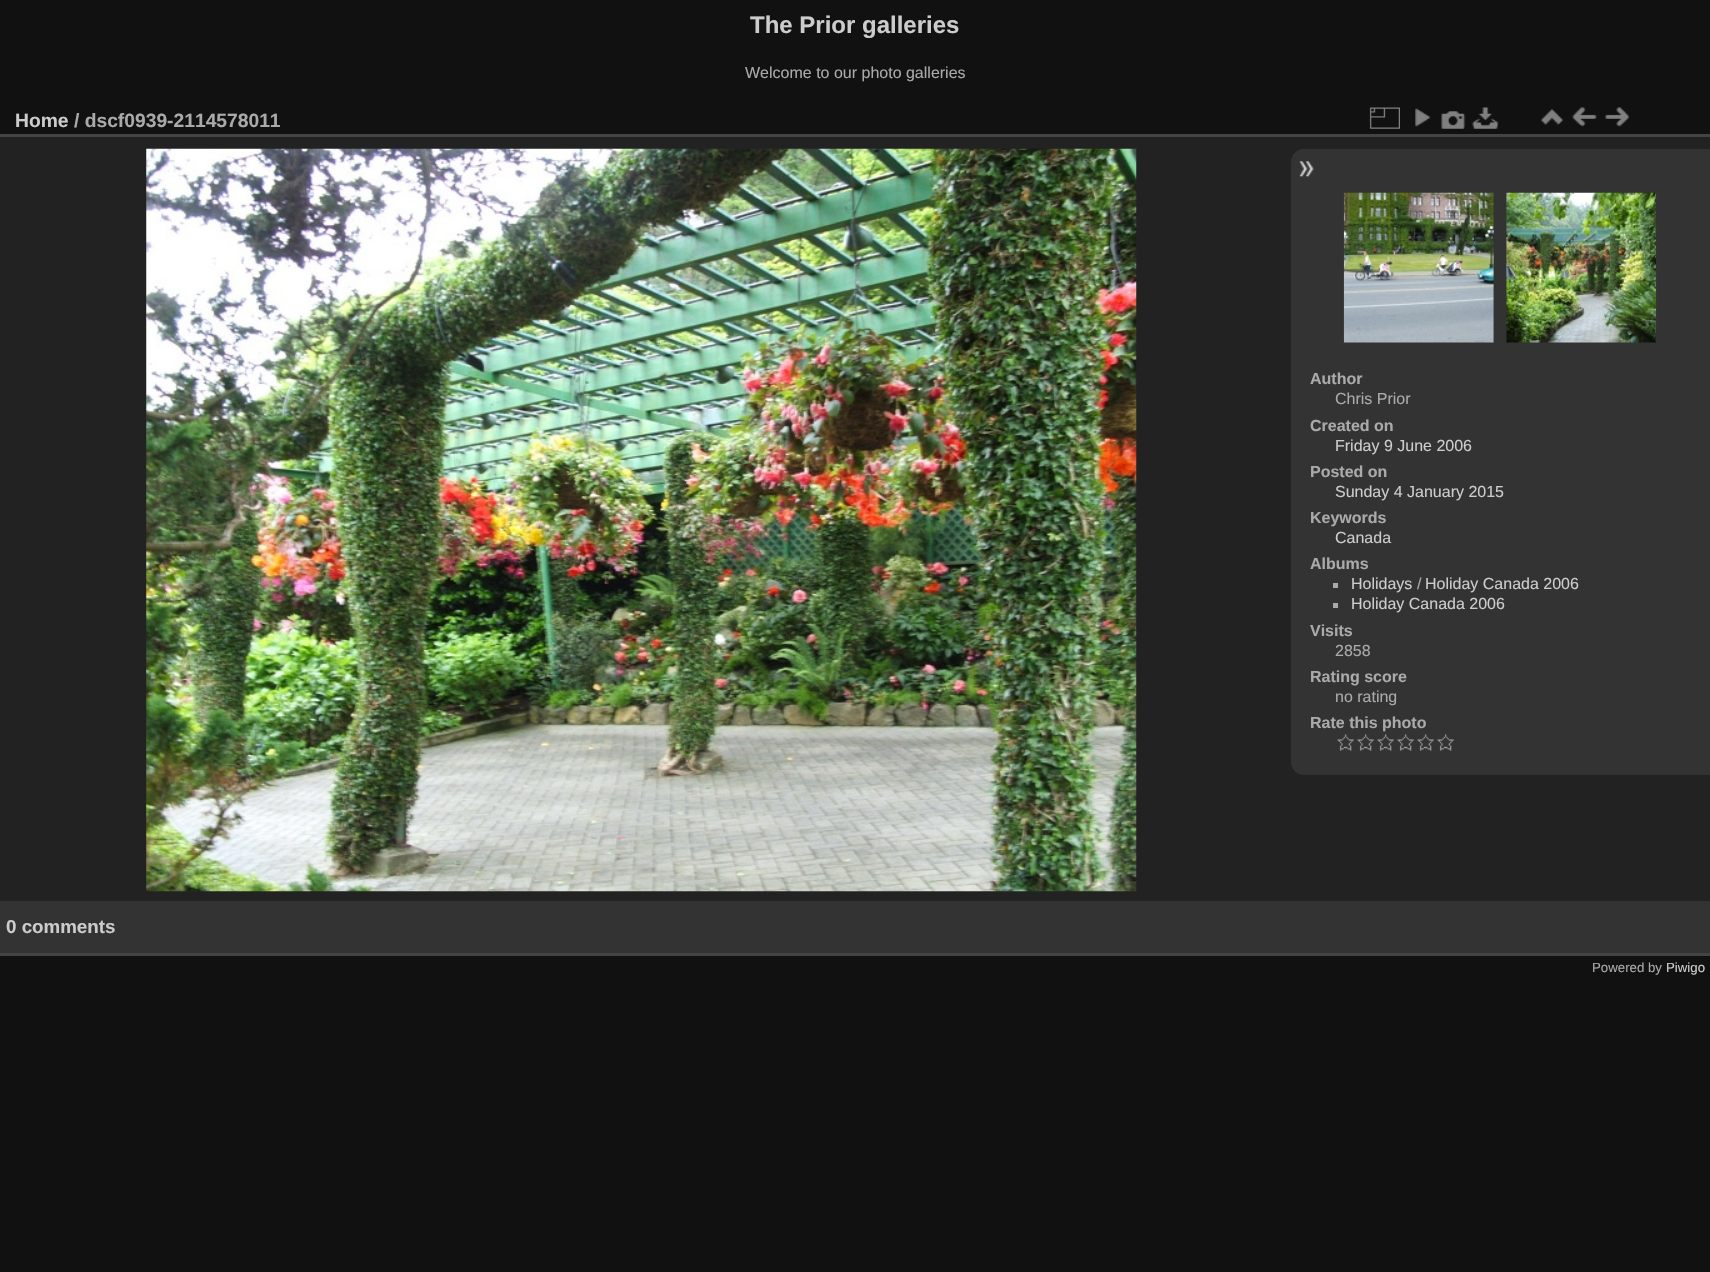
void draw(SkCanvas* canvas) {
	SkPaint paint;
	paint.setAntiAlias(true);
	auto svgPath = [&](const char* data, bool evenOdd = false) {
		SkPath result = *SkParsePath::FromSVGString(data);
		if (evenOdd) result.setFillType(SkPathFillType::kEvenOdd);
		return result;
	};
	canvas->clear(0xff111111);
	SkFont f1(fontMgr->matchFamilyStyle("Liberation Sans", SkFontStyle::Bold()), 24);
	f1.setSubpixel(true);
	paint.setColor(0xffcccccc);
	canvas->drawString("The Prior galleries", 750, 33, f1, paint);
	SkFont f2(fontMgr->matchFamilyStyle("Liberation Sans", SkFontStyle::Normal()), 16);
	f2.setSubpixel(true);
	paint.setColor(0xffaaaaaa);
	canvas->drawString("Welcome to our photo galleries", 745, 78, f2, paint);
	paint.setColor(0xff222222);
	canvas->drawRect(SkRect::MakeXYWH(0, 137, 1710, 764), paint);
	paint.setColor(0xff444444);
	canvas->drawRect(SkRect::MakeXYWH(0, 953, 1710, 3), paint);
	canvas->drawRect(SkRect::MakeXYWH(0, 134, 1710, 3), paint);
	SkFont f3(fontMgr->matchFamilyStyle("Liberation Sans", SkFontStyle::Bold()), 19.25);
	f3.setSubpixel(true);
	paint.setColor(0xffcccccc);
	canvas->drawString("Home", 15, 127, f3, paint);
	paint.setColor(0xffaaaaaa);
	canvas->drawString("/ dscf0939-2114578011", 74, 127, f3, paint);
	canvas->drawImageRect(SkImages::DeferredFromEncodedData(SkData::MakeFromFileName("img1.png")), SkRect::MakeXYWH(1369, 107, 31, 22), SkSamplingOptions());
	canvas->drawImageRect(SkImages::DeferredFromEncodedData(SkData::MakeFromFileName("img2.png")), SkRect::MakeXYWH(1415, 108, 16, 19), SkSamplingOptions());
	canvas->drawImageRect(SkImages::DeferredFromEncodedData(SkData::MakeFromFileName("img3.png")), SkRect::MakeXYWH(1441, 111, 25, 18), SkSamplingOptions());
	canvas->drawImageRect(SkImages::DeferredFromEncodedData(SkData::MakeFromFileName("img4.png")), SkRect::MakeXYWH(1472, 107, 27, 22), SkSamplingOptions());
	canvas->drawImageRect(SkImages::DeferredFromEncodedData(SkData::MakeFromFileName("img5.png")), SkRect::MakeXYWH(1541, 108, 22, 18), SkSamplingOptions());
	canvas->drawImageRect(SkImages::DeferredFromEncodedData(SkData::MakeFromFileName("img6.png")), SkRect::MakeXYWH(1572, 107, 25, 20), SkSamplingOptions());
	canvas->drawImageRect(SkImages::DeferredFromEncodedData(SkData::MakeFromFileName("img7.png")), SkRect::MakeXYWH(1605, 107, 24, 20), SkSamplingOptions());
	canvas->drawImageRect(SkImages::DeferredFromEncodedData(SkData::MakeFromFileName("img8.png")), SkRect::MakeXYWH(146, 148, 991, 744), SkSamplingOptions());
	paint.setColor(0xff333333);
	canvas->drawPath(svgPath("M1304 149H1710V775H1304C1297 775 1291 769 1291 762V162C1291 155 1297 149 1304 149Z"), paint);
	canvas->drawImageRect(SkImages::DeferredFromEncodedData(SkData::MakeFromFileName("img9.png")), SkRect::MakeXYWH(1299, 161, 15, 16), SkSamplingOptions());
	canvas->drawImageRect(SkImages::DeferredFromEncodedData(SkData::MakeFromFileName("img10.png")), SkRect::MakeXYWH(1343, 192, 151, 151), SkSamplingOptions());
	canvas->drawImageRect(SkImages::DeferredFromEncodedData(SkData::MakeFromFileName("img11.png")), SkRect::MakeXYWH(1506, 192, 151, 151), SkSamplingOptions());
	SkFont f4(fontMgr->matchFamilyStyle("Liberation Sans", SkFontStyle::Bold()), 16);
	f4.setSubpixel(true);
	paint.setColor(0xffaaaaaa);
	canvas->drawString("Author", 1310, 384, f4, paint);
	canvas->drawString("Chris Prior", 1335, 404, f2, paint);
	canvas->drawString("Created on", 1310, 431, f4, paint);
	paint.setColor(0xffcccccc);
	canvas->drawString("Friday 9 June 2006", 1335, 451, f2, paint);
	paint.setColor(0xffaaaaaa);
	canvas->drawString("Posted on", 1310, 477, f4, paint);
	paint.setColor(0xffcccccc);
	canvas->drawString("Sunday 4 January 2015", 1335, 497, f2, paint);
	paint.setColor(0xffaaaaaa);
	canvas->drawString("Keywords", 1310, 523, f4, paint);
	paint.setColor(0xffcccccc);
	canvas->drawString("Canada", 1335, 543, f2, paint);
	paint.setColor(0xffaaaaaa);
	canvas->drawString("Albums", 1310, 569, f4, paint);
	canvas->drawRect(SkRect::MakeXYWH(1333, 583, 5, 5), paint);
	paint.setColor(0xffcccccc);
	canvas->drawString("Holidays", 1351, 589, f2, paint);
	paint.setColor(0xffaaaaaa);
	canvas->drawString("/", 1417, 589, f2, paint);
	paint.setColor(0xffcccccc);
	canvas->drawString("Holiday Canada 2006", 1425, 589, f2, paint);
	paint.setColor(0xffaaaaaa);
	canvas->drawRect(SkRect::MakeXYWH(1333, 603, 5, 5), paint);
	paint.setColor(0xffcccccc);
	canvas->drawString("Holiday Canada 2006", 1351, 609, f2, paint);
	paint.setColor(0xffaaaaaa);
	canvas->drawString("Visits", 1310, 636, f4, paint);
	canvas->drawString("2858", 1335, 656, f2, paint);
	canvas->drawString("Rating score", 1310, 682, f4, paint);
	canvas->drawString("no rating", 1335, 702, f2, paint);
	canvas->drawString("Rate this photo", 1310, 728, f4, paint);
	canvas->drawImageRect(SkImages::DeferredFromEncodedData(SkData::MakeFromFileName("img12.png")), SkRect::MakeXYWH(1337, 734, 17, 17), SkSamplingOptions());
	canvas->drawImageRect(SkImages::DeferredFromEncodedData(SkData::MakeFromFileName("img12.png")), SkRect::MakeXYWH(1357, 734, 17, 17), SkSamplingOptions());
	canvas->drawImageRect(SkImages::DeferredFromEncodedData(SkData::MakeFromFileName("img12.png")), SkRect::MakeXYWH(1377, 734, 17, 17), SkSamplingOptions());
	canvas->drawImageRect(SkImages::DeferredFromEncodedData(SkData::MakeFromFileName("img12.png")), SkRect::MakeXYWH(1397, 734, 17, 17), SkSamplingOptions());
	canvas->drawImageRect(SkImages::DeferredFromEncodedData(SkData::MakeFromFileName("img12.png")), SkRect::MakeXYWH(1417, 734, 17, 17), SkSamplingOptions());
	canvas->drawImageRect(SkImages::DeferredFromEncodedData(SkData::MakeFromFileName("img12.png")), SkRect::MakeXYWH(1437, 734, 17, 17), SkSamplingOptions());
	paint.setColor(0xff333333);
	canvas->drawRect(SkRect::MakeXYWH(0, 901, 1710, 52), paint);
	SkFont f5(fontMgr->matchFamilyStyle("Liberation Sans", SkFontStyle::Bold()), 18.75);
	f5.setSubpixel(true);
	paint.setColor(0xffcccccc);
	canvas->drawString("0 comments", 6, 933, f5, paint);
	SkFont f6(fontMgr->matchFamilyStyle("Liberation Sans", SkFontStyle::Normal()), 13.25);
	f6.setSubpixel(true);
	paint.setColor(0xffaaaaaa);
	canvas->drawString("Powered by", 1592, 972, f6, paint);
	paint.setColor(0xffcccccc);
	canvas->drawString("Piwigo", 1666, 972, f6, paint);
}
